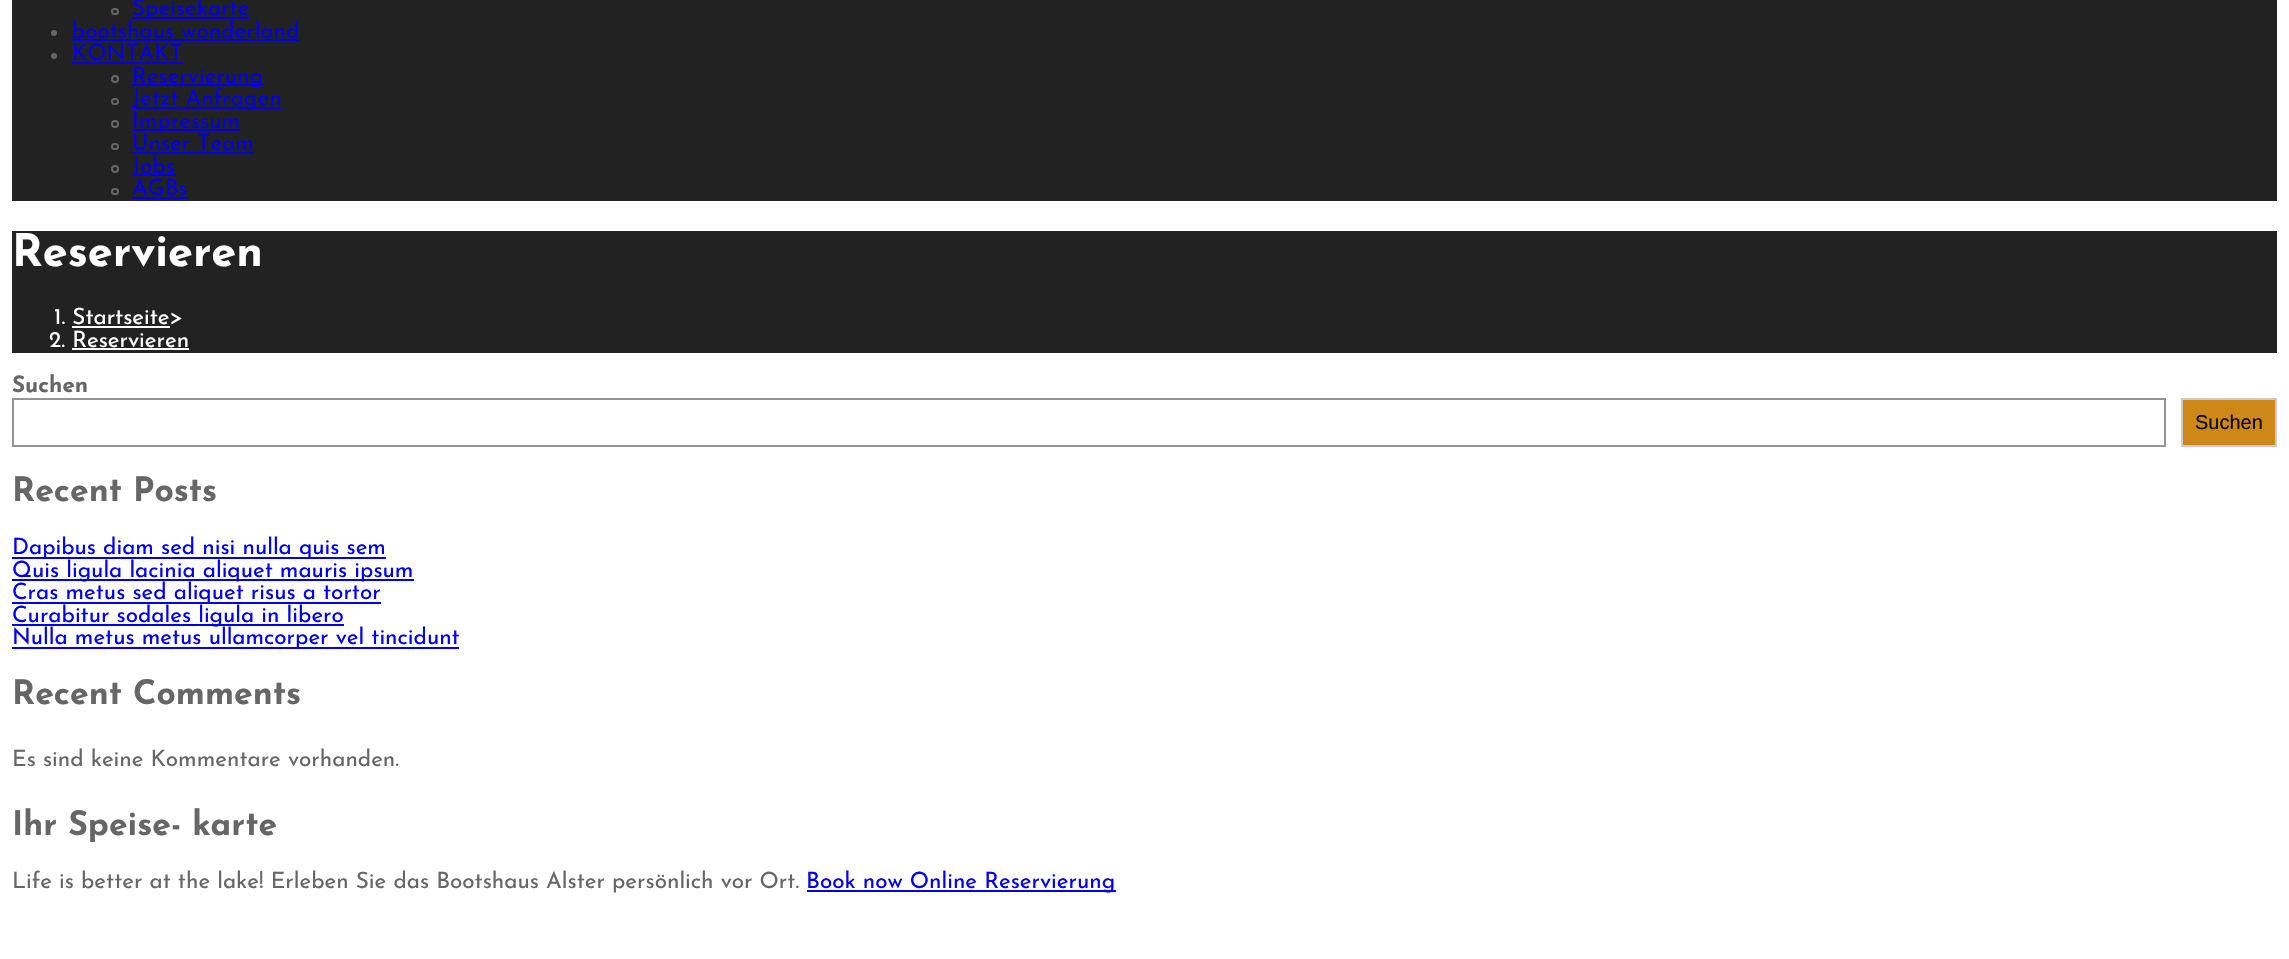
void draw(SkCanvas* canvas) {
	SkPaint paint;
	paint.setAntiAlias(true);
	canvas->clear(0xffffffff);
	paint.setColor(0xff222222);
	canvas->drawRect(SkRect::MakeXYWH(12, 0, 2265, 201), paint);
	paint.setStroke(true);
	paint.setStrokeWidth(2);
	paint.setColor(0xff666666);
	canvas->drawRoundRect(SkRect::MakeXYWH(112, 9, 6, 5), 2.5, 2.5, paint);
	paint.setStroke(false);
	paint.setColor(0xff0000ee);
	canvas->drawRect(SkRect::MakeXYWH(132, 17, 117, 2), paint);
	SkFont f1(fontMgr->matchFamilyStyle("Josefin Sans", SkFontStyle::Normal()), 22.5);
	f1.setSubpixel(true);
	canvas->drawString("Speisekarte", 132, 15, f1, paint);
	paint.setColor(0xff666666);
	canvas->drawCircle(54, 33, 3, paint);
	paint.setColor(0xff0000ee);
	canvas->drawString("bootshaus wonderland", 72, 38, f1, paint);
	canvas->drawRect(SkRect::MakeXYWH(72, 39, 228, 2), paint);
	paint.setColor(0xff666666);
	canvas->drawCircle(54, 56, 3, paint);
	paint.setColor(0xff0000ee);
	canvas->drawString("KONTAKT", 72, 60, f1, paint);
	canvas->drawRect(SkRect::MakeXYWH(72, 62, 111, 2), paint);
	paint.setStroke(true);
	paint.setColor(0xff666666);
	canvas->drawCircle(115, 79, 3, paint);
	paint.setStroke(false);
	paint.setColor(0xff0000ee);
	canvas->drawRect(SkRect::MakeXYWH(132, 84, 131, 2), paint);
	canvas->drawString("Reservierung", 132, 83, f1, paint);
	paint.setStroke(true);
	paint.setColor(0xff666666);
	canvas->drawRoundRect(SkRect::MakeXYWH(112, 99, 6, 5), 2.5, 2.5, paint);
	paint.setStroke(false);
	paint.setColor(0xff0000ee);
	canvas->drawRect(SkRect::MakeXYWH(132, 107, 150, 2), paint);
	canvas->drawString("Jetzt Anfragen", 132, 105, f1, paint);
	paint.setStroke(true);
	paint.setColor(0xff666666);
	canvas->drawCircle(115, 124, 3, paint);
	paint.setStroke(false);
	paint.setColor(0xff0000ee);
	canvas->drawRect(SkRect::MakeXYWH(132, 129, 108, 2), paint);
	canvas->drawString("Impressum", 132, 128, f1, paint);
	paint.setStroke(true);
	paint.setColor(0xff666666);
	canvas->drawRoundRect(SkRect::MakeXYWH(112, 144, 6, 5), 2.5, 2.5, paint);
	paint.setStroke(false);
	paint.setColor(0xff0000ee);
	canvas->drawString("Unser Team", 132, 150, f1, paint);
	canvas->drawRect(SkRect::MakeXYWH(132, 152, 122, 2), paint);
	paint.setStroke(true);
	paint.setColor(0xff666666);
	canvas->drawCircle(115, 169, 3, paint);
	paint.setStroke(false);
	paint.setColor(0xff0000ee);
	canvas->drawRect(SkRect::MakeXYWH(132, 174, 44, 2), paint);
	canvas->drawString("Jobs", 132, 173, f1, paint);
	paint.setStroke(true);
	paint.setColor(0xff666666);
	canvas->drawRoundRect(SkRect::MakeXYWH(112, 189, 6, 5), 2.5, 2.5, paint);
	paint.setStroke(false);
	paint.setColor(0xff0000ee);
	canvas->drawString("AGBs", 132, 195, f1, paint);
	canvas->drawRect(SkRect::MakeXYWH(132, 197, 56, 2), paint);
	paint.setColor(0xff222222);
	canvas->drawRect(SkRect::MakeXYWH(12, 231, 2265, 122), paint);
	SkFont f2(fontMgr->matchFamilyStyle("Josefin Sans", SkFontStyle::Bold()), 45);
	f2.setSubpixel(true);
	paint.setColor(0xffffffff);
	canvas->drawString("Reservieren", 12, 266, f2, paint);
	canvas->drawString("1. Startseite>", 54, 324, f1, paint);
	canvas->drawRect(SkRect::MakeXYWH(72, 326, 98, 2), paint);
	canvas->drawString("2. Reservieren", 49, 347, f1, paint);
	canvas->drawRect(SkRect::MakeXYWH(72, 348, 117, 2), paint);
	SkFont f3(fontMgr->matchFamilyStyle("Josefin Sans", SkFontStyle::Bold()), 22.5);
	f3.setSubpixel(true);
	paint.setColor(0xff666666);
	canvas->drawString("Suchen", 12, 392, f3, paint);
	paint.setStroke(true);
	paint.setColor(0xff949494);
	canvas->drawRect(SkRect::MakeXYWH(13, 399, 2152, 47), paint);
	paint.setStroke(false);
	paint.setColor(0xffce8818);
	canvas->drawRect(SkRect::MakeXYWH(2182, 399, 94, 47), paint);
	paint.setStroke(true);
	paint.setColor(0xffcccccc);
	canvas->drawRect(SkRect::MakeXYWH(2182, 399, 94, 47), paint);
	SkFont f4(fontMgr->matchFamilyStyle("Liberation Sans", SkFontStyle::Normal()), 20);
	f4.setSubpixel(true);
	paint.setStroke(false);
	paint.setColor(0xff000000);
	canvas->drawString("Suchen", 2195, 429, f4, paint);
	SkFont f5(fontMgr->matchFamilyStyle("Josefin Sans", SkFontStyle::Bold()), 33.75);
	f5.setSubpixel(true);
	paint.setColor(0xff666666);
	canvas->drawString("Recent Posts", 12, 501, f5, paint);
	paint.setColor(0xff0000ee);
	canvas->drawRect(SkRect::MakeXYWH(12, 557, 374, 2), paint);
	canvas->drawString("Dapibus diam sed nisi nulla quis sem", 12, 554, f1, paint);
	canvas->drawRect(SkRect::MakeXYWH(12, 579, 402, 2), paint);
	canvas->drawString("Quis ligula lacinia aliquet mauris ipsum", 12, 577, f1, paint);
	canvas->drawRect(SkRect::MakeXYWH(12, 602, 369, 2), paint);
	canvas->drawString("Cras metus sed aliquet risus a tortor", 12, 599, f1, paint);
	canvas->drawRect(SkRect::MakeXYWH(12, 624, 332, 2), paint);
	canvas->drawString("Curabitur sodales ligula in libero", 12, 622, f1, paint);
	canvas->drawRect(SkRect::MakeXYWH(12, 647, 447, 2), paint);
	canvas->drawString("Nulla metus metus ullamcorper vel tincidunt", 12, 644, f1, paint);
	paint.setColor(0xff666666);
	canvas->drawString("Recent Comments", 12, 704, f5, paint);
	canvas->drawString("Es sind keine Kommentare vorhanden.", 12, 766, f1, paint);
	canvas->drawString("Ihr Speise- karte", 12, 835, f5, paint);
	canvas->drawString("Life is better at the lake! Erleben Sie das Bootshaus Alster persönlich vor Ort.", 12, 888, f1, paint);
	paint.setColor(0xff0000ee);
	canvas->drawRect(SkRect::MakeXYWH(807, 890, 309, 2), paint);
	canvas->drawString("Book now Online Reservierung", 806, 888, f1, paint);
}
